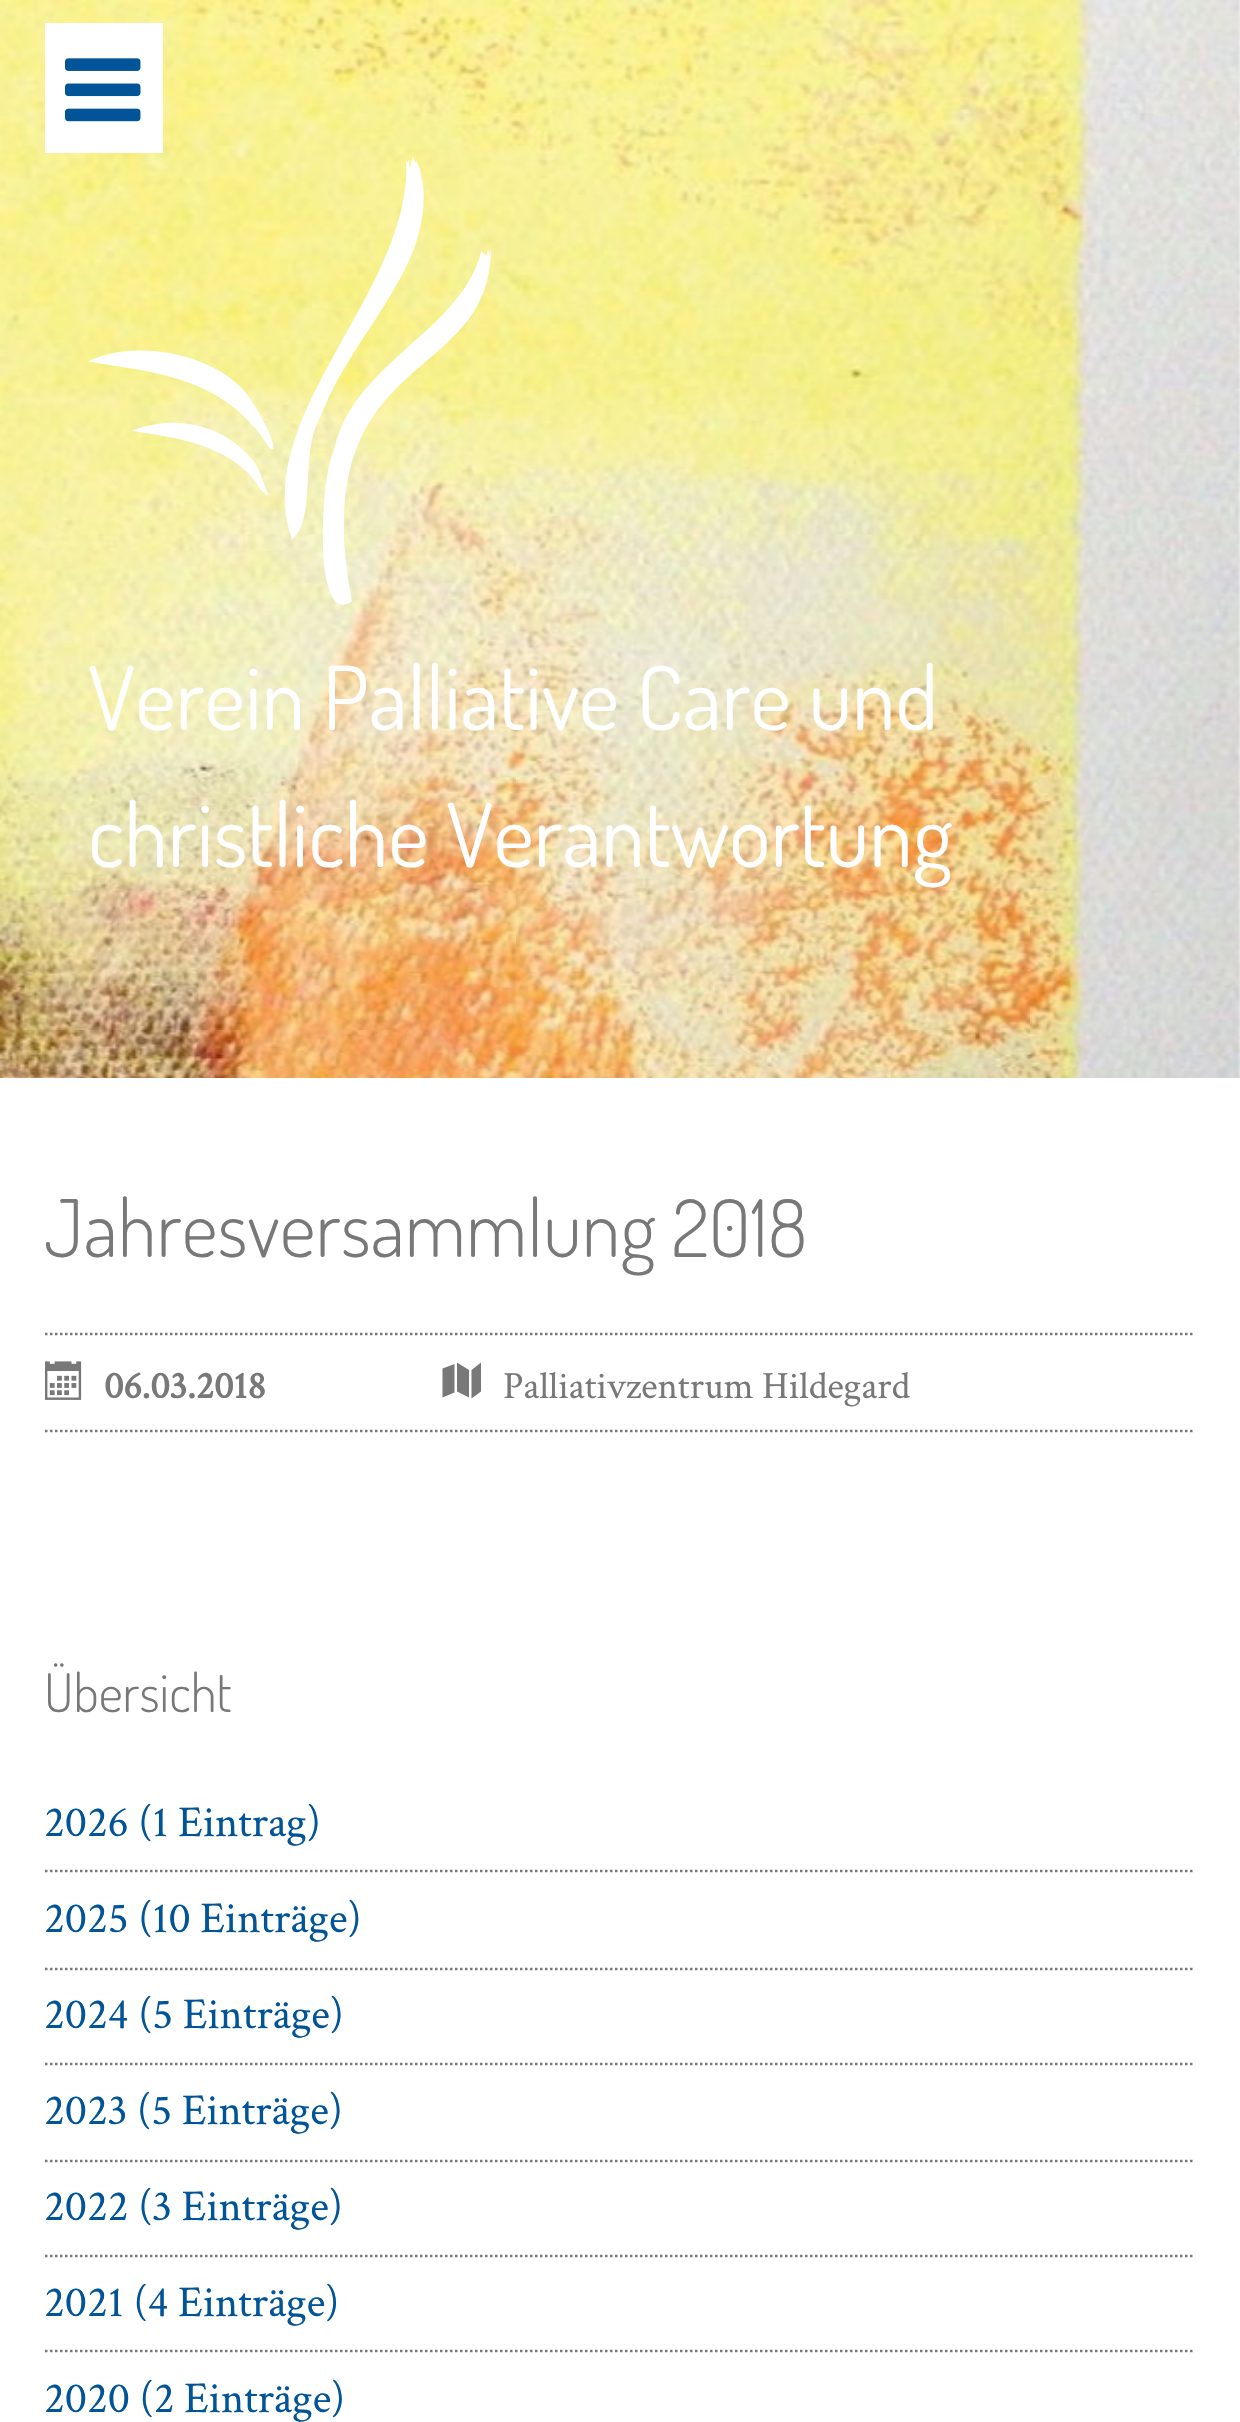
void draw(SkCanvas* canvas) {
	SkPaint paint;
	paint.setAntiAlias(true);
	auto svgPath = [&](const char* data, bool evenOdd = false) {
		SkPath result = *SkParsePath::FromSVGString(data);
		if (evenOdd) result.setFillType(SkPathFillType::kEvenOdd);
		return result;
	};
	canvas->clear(0xffffffff);
	canvas->drawImageRect(SkImages::DeferredFromEncodedData(SkData::MakeFromFileName("img1.png")), SkRect::MakeXYWH(0, 0, 1240, 1078), SkSamplingOptions());
	paint.setColor(0xffffffff);
	canvas->drawRect(SkRect::MakeXYWH(45, 23, 118, 130), paint);
	canvas->drawImageRect(SkImages::DeferredFromEncodedData(SkData::MakeFromFileName("img2.png")), SkRect::MakeXYWH(65, 58, 76, 64), SkSamplingOptions());
	canvas->drawImageRect(SkImages::DeferredFromEncodedData(SkData::MakeFromFileName("img3.png")), SkRect::MakeXYWH(88, 156, 403, 449), SkSamplingOptions());
	SkFont f1(fontMgr->matchFamilyStyle("Dosis", SkFontStyle::Normal()), 88);
	f1.setSubpixel(true);
	canvas->drawString("Verein Palliative Care und", 88, 730, f1, paint);
	canvas->drawString("christliche Verantwortung", 88, 867, f1, paint);
	SkFont f2(fontMgr->matchFamilyStyle("Dosis", SkFontStyle(300, SkFontStyle::kNormal_Width, SkFontStyle::kUpright_Slant)), 79.25);
	f2.setSubpixel(true);
	paint.setColor(0xff787878);
	canvas->drawString("Jahresversammlung 2018", 44, 1257, f2, paint);
	paint.setStroke(true);
	paint.setStrokeWidth(2.5);
	paint.setPathEffect(SkDashPathEffect::Make({{2.5f, 2.5f}}, 0));
	canvas->drawPath(svgPath("M45 1334H1195"), paint);
	paint.setPathEffect(nullptr);
	paint.setPathEffect(SkDashPathEffect::Make({{2.5f, 2.5f}}, 0));
	canvas->drawPath(svgPath("M45 1431H1195"), paint);
	paint.setPathEffect(nullptr);
	canvas->drawImageRect(SkImages::DeferredFromEncodedData(SkData::MakeFromFileName("img4.png")), SkRect::MakeXYWH(45, 1361, 37, 39), SkSamplingOptions());
	SkFont f3(fontMgr->matchFamilyStyle("Crimson Text", SkFontStyle::Bold()), 38.5);
	f3.setSubpixel(true);
	paint.setStroke(false);
	canvas->drawString("06.03.2018", 104, 1398, f3, paint);
	canvas->drawPath(svgPath("M442.5 1368.5L454.5 1364V1392.5L442.5 1397.5ZM457 1362.5L469 1370V1397.5L457 1391.5ZM471.5 1370L481 1362.5V1391.5L471.5 1398.5Z"), paint);
	SkFont f4(fontMgr->matchFamilyStyle("Crimson Text", SkFontStyle::Normal()), 38.5);
	f4.setSubpixel(true);
	canvas->drawString("Palliativzentrum Hildegard", 503, 1398, f4, paint);
	SkFont f5(fontMgr->matchFamilyStyle("Dosis", SkFontStyle(300, SkFontStyle::kNormal_Width, SkFontStyle::kUpright_Slant)), 53);
	f5.setSubpixel(true);
	canvas->drawString("Übersicht", 44, 1712, f5, paint);
	paint.setStroke(true);
	paint.setPathEffect(SkDashPathEffect::Make({{2.5f, 2.5f}}, 0));
	canvas->drawPath(svgPath("M45 1871H1195"), paint);
	paint.setPathEffect(nullptr);
	SkFont f6(fontMgr->matchFamilyStyle("Crimson Text", SkFontStyle::Normal()), 44);
	f6.setSubpixel(true);
	paint.setStroke(false);
	paint.setColor(0xff005497);
	canvas->drawString("2026 (1 Eintrag)", 44, 1836, f6, paint);
	paint.setStroke(true);
	paint.setColor(0xff787878);
	paint.setPathEffect(SkDashPathEffect::Make({{2.5f, 2.5f}}, 0));
	canvas->drawPath(svgPath("M45 1969H1195"), paint);
	paint.setPathEffect(nullptr);
	paint.setStroke(false);
	paint.setColor(0xff005497);
	canvas->drawString("2025 (10 Einträge)", 44, 1932, f6, paint);
	paint.setStroke(true);
	paint.setColor(0xff787878);
	paint.setPathEffect(SkDashPathEffect::Make({{2.5f, 2.5f}}, 0));
	canvas->drawPath(svgPath("M45 2064H1195"), paint);
	paint.setPathEffect(nullptr);
	paint.setStroke(false);
	paint.setColor(0xff005497);
	canvas->drawString("2024 (5 Einträge)", 44, 2028, f6, paint);
	paint.setStroke(true);
	paint.setColor(0xff787878);
	paint.setPathEffect(SkDashPathEffect::Make({{2.5f, 2.5f}}, 0));
	canvas->drawPath(svgPath("M45 2161H1195"), paint);
	paint.setPathEffect(nullptr);
	paint.setStroke(false);
	paint.setColor(0xff005497);
	canvas->drawString("2023 (5 Einträge)", 44, 2124, f6, paint);
	paint.setStroke(true);
	paint.setColor(0xff787878);
	paint.setPathEffect(SkDashPathEffect::Make({{2.5f, 2.5f}}, 0));
	canvas->drawPath(svgPath("M45 2256H1195"), paint);
	paint.setPathEffect(nullptr);
	paint.setStroke(false);
	paint.setColor(0xff005497);
	canvas->drawString("2022 (3 Einträge)", 44, 2220, f6, paint);
	paint.setStroke(true);
	paint.setColor(0xff787878);
	paint.setPathEffect(SkDashPathEffect::Make({{2.5f, 2.5f}}, 0));
	canvas->drawPath(svgPath("M45 2351H1195"), paint);
	paint.setPathEffect(nullptr);
	paint.setStroke(false);
	paint.setColor(0xff005497);
	canvas->drawString("2021 (4 Einträge)", 44, 2316, f6, paint);
	canvas->drawString("2020 (2 Einträge)", 44, 2412, f6, paint);
}
